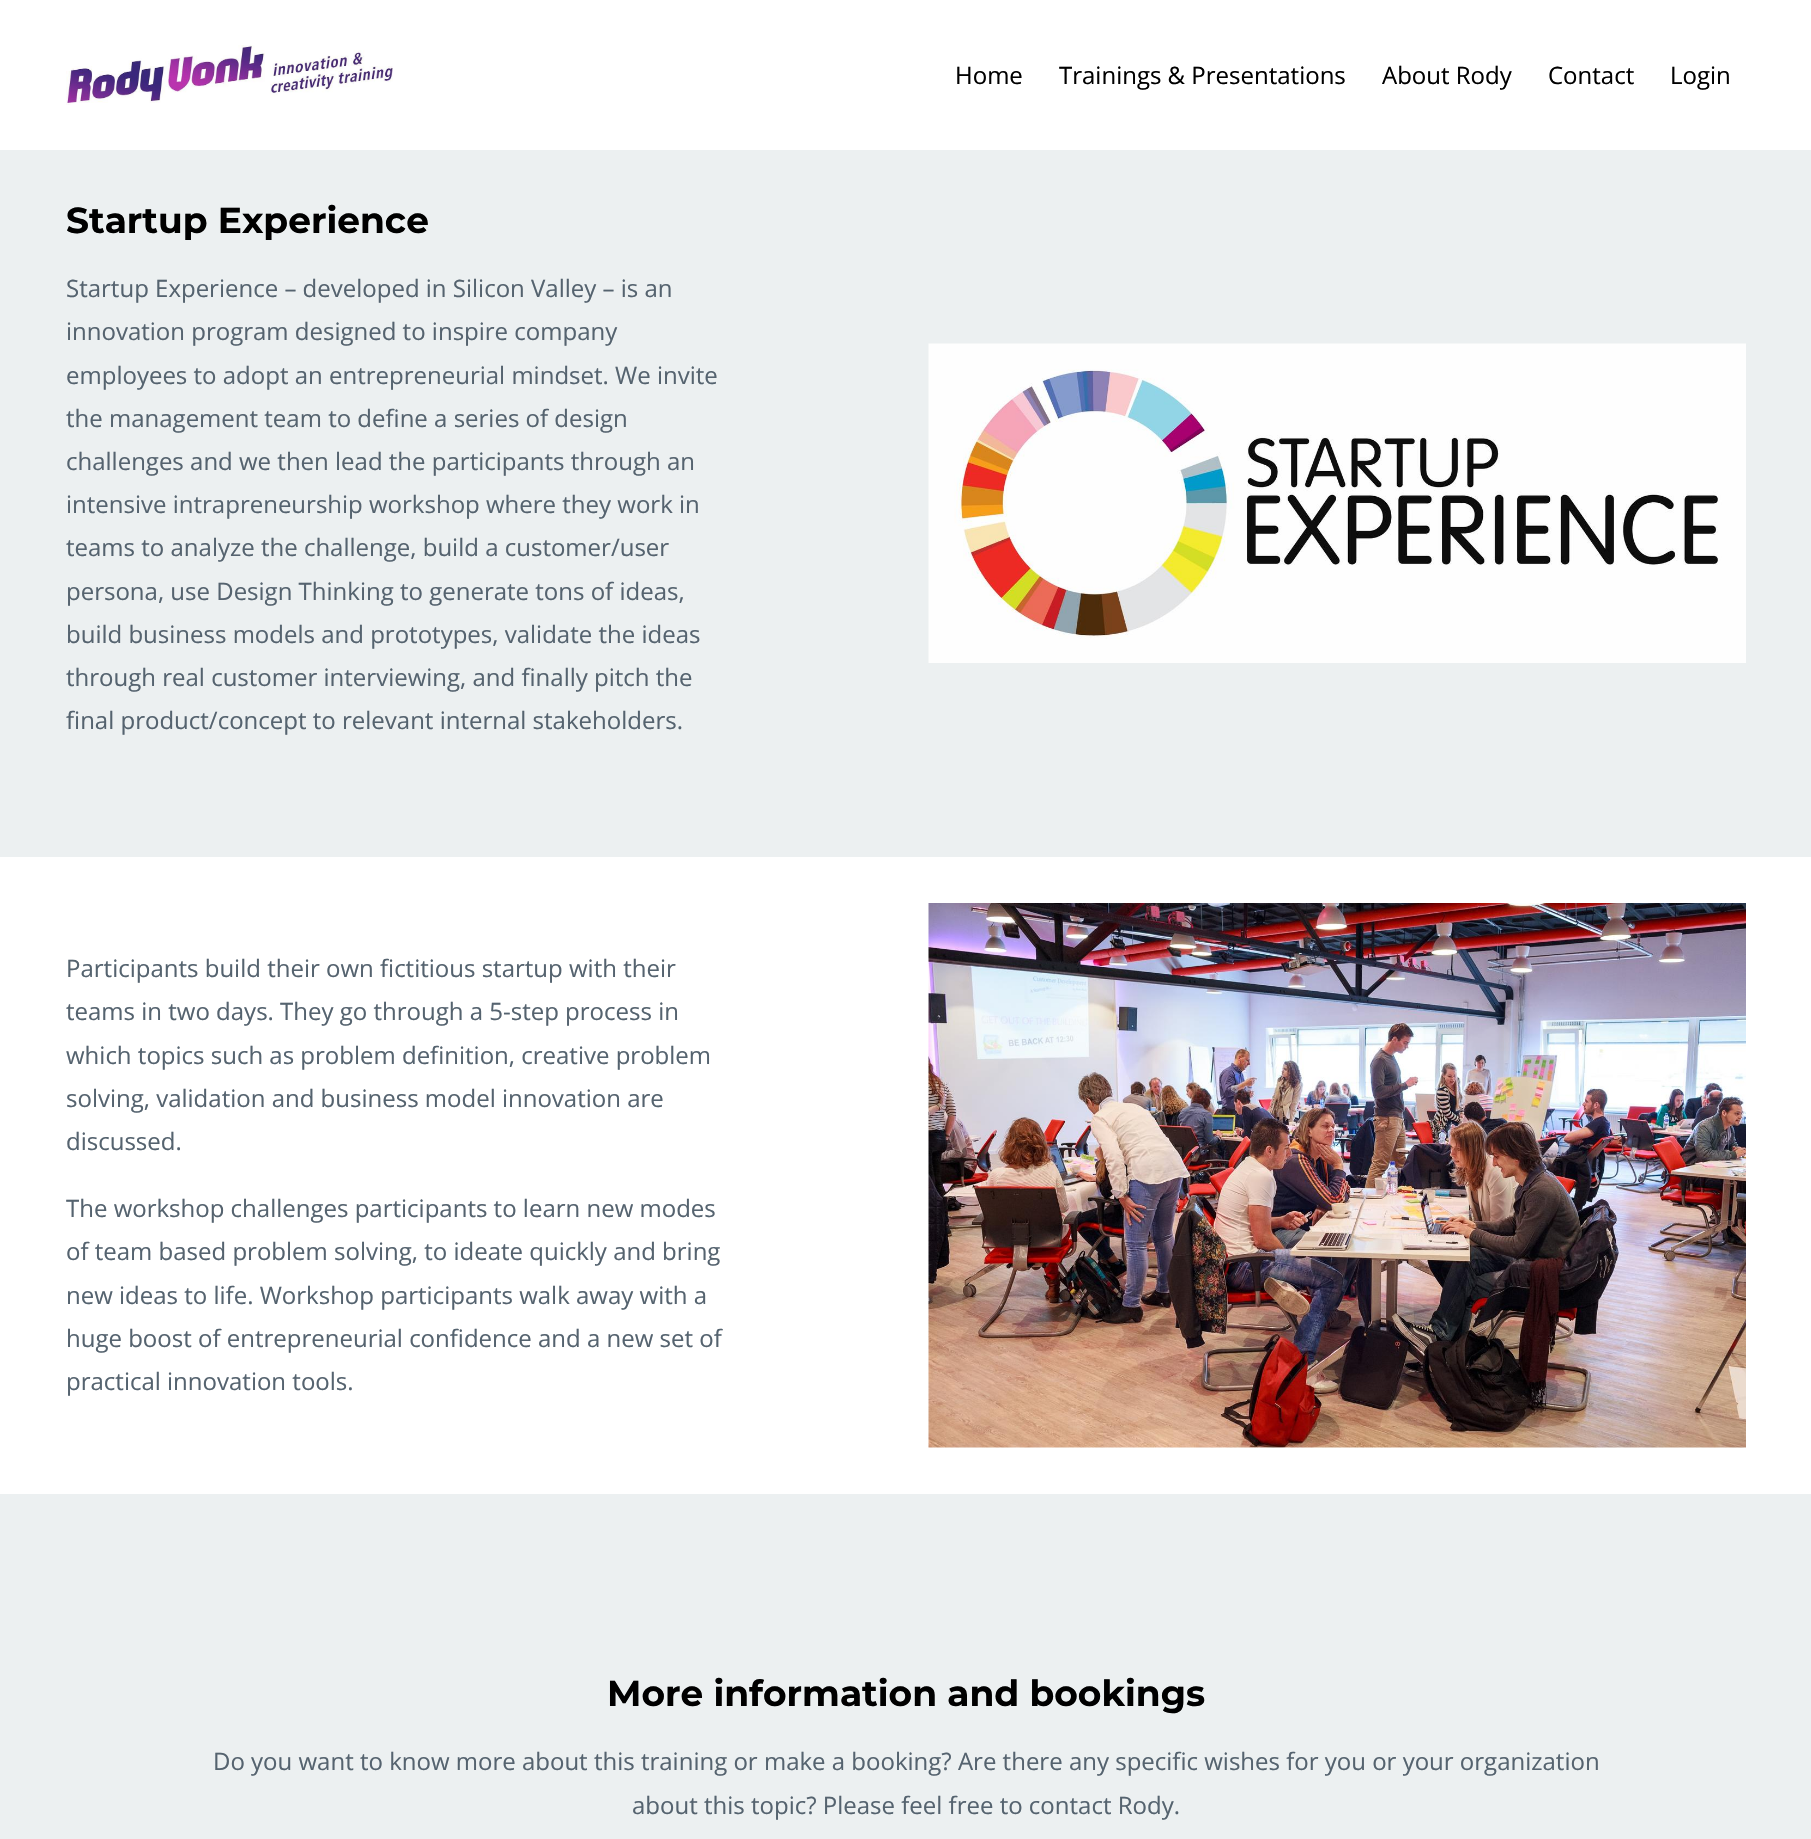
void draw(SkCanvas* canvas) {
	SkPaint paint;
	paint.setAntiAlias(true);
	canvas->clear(0xffecf0f1);
	paint.setColor(0xffffffff);
	canvas->drawRect(SkRect::MakeXYWH(0, 0, 1811, 150), paint);
	canvas->drawImageRect(SkImages::DeferredFromEncodedData(SkData::MakeFromFileName("img1.png")), SkRect::MakeXYWH(66, 45, 327, 60), SkSamplingOptions());
	SkFont f1(fontMgr->matchFamilyStyle("Open Sans", SkFontStyle::Normal()), 24);
	f1.setSubpixel(true);
	paint.setColor(0xff000000);
	canvas->drawString("Home", 955, 84, f1, paint);
	canvas->drawString("Trainings & Presentations", 1059, 84, f1, paint);
	canvas->drawString("About Rody", 1382, 84, f1, paint);
	canvas->drawString("Contact", 1548, 84, f1, paint);
	canvas->drawString("Login", 1670, 84, f1, paint);
	SkFont f2(fontMgr->matchFamilyStyle("Montserrat", SkFontStyle::Bold()), 36);
	f2.setSubpixel(true);
	canvas->drawString("Startup Experience", 66, 233, f2, paint);
	paint.setColor(0xff55636f);
	canvas->drawString("Startup Experience – developed in Silicon Valley – is an", 66, 297, f1, paint);
	canvas->drawString("innovation program designed to inspire company", 66, 340, f1, paint);
	canvas->drawString("employees to adopt an entrepreneurial mindset. We invite", 66, 384, f1, paint);
	canvas->drawString("the management team to define a series of design", 66, 427, f1, paint);
	canvas->drawString("challenges and we then lead the participants through an", 66, 470, f1, paint);
	canvas->drawString("intensive intrapreneurship workshop where they work in", 66, 513, f1, paint);
	canvas->drawString("teams to analyze the challenge, build a customer/user", 66, 556, f1, paint);
	canvas->drawString("persona, use Design Thinking to generate tons of ideas,", 66, 600, f1, paint);
	canvas->drawString("build business models and prototypes, validate the ideas", 66, 643, f1, paint);
	canvas->drawString("through real customer interviewing, and finally pitch the", 66, 686, f1, paint);
	canvas->drawString("final product/concept to relevant internal stakeholders.", 66, 729, f1, paint);
	canvas->drawImageRect(SkImages::DeferredFromEncodedData(SkData::MakeFromFileName("img2.png")), SkRect::MakeXYWH(928, 343, 818, 320), SkSamplingOptions());
	paint.setColor(0xffffffff);
	canvas->drawRect(SkRect::MakeXYWH(0, 857, 1811, 637), paint);
	paint.setColor(0xff55636f);
	canvas->drawString("Participants build their own fictitious startup with their", 66, 977, f1, paint);
	canvas->drawString("teams in two days. They go through a 5-step process in", 66, 1020, f1, paint);
	canvas->drawString("which topics such as problem definition, creative problem", 66, 1064, f1, paint);
	canvas->drawString("solving, validation and business model innovation are", 66, 1107, f1, paint);
	canvas->drawString("discussed.", 66, 1150, f1, paint);
	canvas->drawString("The workshop challenges participants to learn new modes", 66, 1217, f1, paint);
	canvas->drawString("of team based problem solving, to ideate quickly and bring", 66, 1260, f1, paint);
	canvas->drawString("new ideas to life. Workshop participants walk away with a", 66, 1304, f1, paint);
	canvas->drawString("huge boost of entrepreneurial confidence and a new set of", 66, 1347, f1, paint);
	canvas->drawString("practical innovation tools.", 66, 1390, f1, paint);
	canvas->drawImageRect(SkImages::DeferredFromEncodedData(SkData::MakeFromFileName("img3.png")), SkRect::MakeXYWH(928, 903, 818, 545), SkSamplingOptions());
	paint.setColor(0xff000000);
	canvas->drawString("More information and bookings", 607, 1706, f2, paint);
	paint.setColor(0xff55636f);
	canvas->drawString("Do you want to know more about this training or make a booking? Are there any specific wishes for you or your organization", 213, 1770, f1, paint);
	canvas->drawString("about this topic? Please feel free to contact Rody.", 632, 1814, f1, paint);
}
